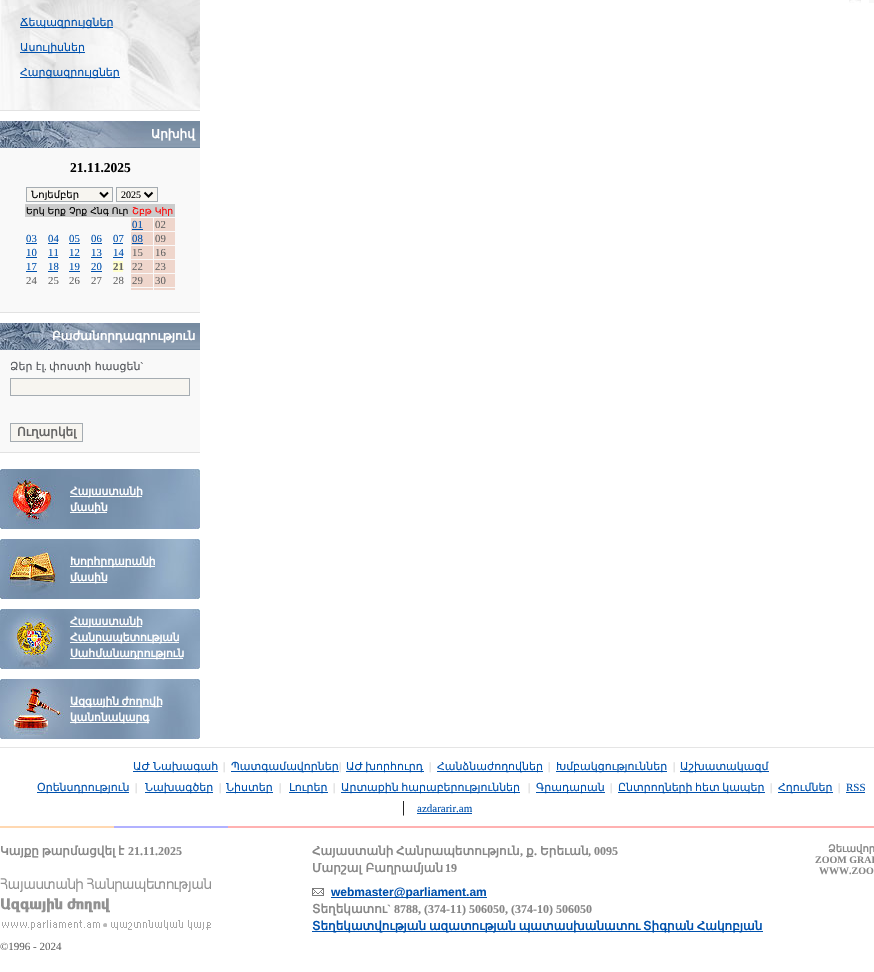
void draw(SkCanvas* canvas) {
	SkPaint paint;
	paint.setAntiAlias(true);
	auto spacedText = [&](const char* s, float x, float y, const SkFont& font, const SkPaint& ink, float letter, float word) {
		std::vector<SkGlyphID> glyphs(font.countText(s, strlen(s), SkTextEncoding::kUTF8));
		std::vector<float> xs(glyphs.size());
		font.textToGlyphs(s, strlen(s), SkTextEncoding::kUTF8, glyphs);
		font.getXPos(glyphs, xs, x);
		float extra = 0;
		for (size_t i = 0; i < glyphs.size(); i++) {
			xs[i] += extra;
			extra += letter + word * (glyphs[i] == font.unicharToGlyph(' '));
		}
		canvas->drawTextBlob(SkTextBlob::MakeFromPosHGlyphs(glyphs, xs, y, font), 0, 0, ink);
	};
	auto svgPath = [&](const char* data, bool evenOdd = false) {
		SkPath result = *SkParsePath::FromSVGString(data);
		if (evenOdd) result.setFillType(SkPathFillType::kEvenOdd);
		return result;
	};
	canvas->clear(0xffffffff);
	canvas->drawImageRect(SkImages::DeferredFromEncodedData(SkData::MakeFromFileName("img1.png")), SkRect::MakeXYWH(849, 0, 12, 3), SkSamplingOptions());
	paint.setColor(0xfff8f8f8);
	canvas->drawRect(SkRect::MakeXYWH(869, 0, 5, 3), paint);
	paint.setColor(0xfff9f9f9);
	canvas->drawRect(SkRect::MakeXYWH(0, 0, 1, 110), paint);
	canvas->drawImageRect(SkImages::DeferredFromEncodedData(SkData::MakeFromFileName("img2.png")), SkRect::MakeXYWH(1, 0, 199, 110), SkSamplingOptions());
	paint.setColor(0xffe2e2e2);
	canvas->drawRect(SkRect::MakeXYWH(0, 110, 200, 1), paint);
	paint.setColor(0xff0051ad);
	canvas->drawRect(SkRect::MakeXYWH(20, 27, 93, 1), paint);
	SkFont f1(fontMgr->matchFamilyStyle("DejaVu Sans", SkFontStyle::Normal()), 11);
	f1.setSubpixel(true);
	canvas->drawString("Ճեպազրույցներ", 20, 26, f1, paint);
	canvas->drawRect(SkRect::MakeXYWH(20, 52, 65, 1), paint);
	canvas->drawString("Ասուլիսներ", 20, 51, f1, paint);
	canvas->drawRect(SkRect::MakeXYWH(20, 77, 100, 1), paint);
	canvas->drawString("Հարցազրույցներ", 20, 76, f1, paint);
	canvas->drawImageRect(SkImages::DeferredFromEncodedData(SkData::MakeFromFileName("img3.png")), SkRect::MakeXYWH(0, 121, 200, 27), SkSamplingOptions());
	SkFont f2(fontMgr->matchFamilyStyle("DejaVu Sans", SkFontStyle::Bold()), 12);
	f2.setSubpixel(true);
	paint.setColor(0xffffffff);
	canvas->drawString("Արխիվ", 151, 138, f2, paint);
	paint.setColor(0xfff9f9f9);
	canvas->drawRect(SkRect::MakeXYWH(0, 148, 200, 164), paint);
	paint.setColor(0xffe2e2e2);
	canvas->drawRect(SkRect::MakeXYWH(0, 312, 200, 1), paint);
	SkFont f3(fontMgr->matchFamilyStyle("Liberation Serif", SkFontStyle::Bold()), 13.5);
	f3.setSubpixel(true);
	paint.setColor(0xff000000);
	canvas->drawString("21.11.2025", 70, 172, f3, paint);
	paint.setColor(0xfff7f5f0);
	canvas->drawRect(SkRect::MakeXYWH(26.5, 187.5, 86, 14), paint);
	paint.setStroke(true);
	paint.setStrokeWidth(1);
	paint.setColor(0xffa5acb2);
	canvas->drawRect(SkRect::MakeXYWH(26.5, 187.5, 86, 14), paint);
	paint.setStrokeWidth(2);
	paint.setColor(0xff000000);
	canvas->drawPath(svgPath("M100 192.5L104 196.5L108 192.5"), paint);
	SkFont f4(fontMgr->matchFamilyStyle("DejaVu Sans", SkFontStyle::Normal()), 10);
	f4.setSubpixel(true);
	paint.setStroke(false);
	canvas->drawString("Նոյեմբեր", 31, 198, f4, paint);
	paint.setColor(0xfff7f5f0);
	canvas->drawRect(SkRect::MakeXYWH(116.5, 187.5, 41, 14), paint);
	paint.setStroke(true);
	paint.setStrokeWidth(1);
	paint.setColor(0xffa5acb2);
	canvas->drawRect(SkRect::MakeXYWH(116.5, 187.5, 41, 14), paint);
	paint.setStrokeWidth(2);
	paint.setColor(0xff000000);
	canvas->drawPath(svgPath("M144.5 192.5L148.5 196.5L152.5 192.5"), paint);
	SkFont f5(fontMgr->matchFamilyStyle("Liberation Serif", SkFontStyle::Normal()), 10);
	f5.setSubpixel(true);
	paint.setStroke(false);
	canvas->drawString("2025", 121, 198, f5, paint);
	paint.setColor(0xffcccccc);
	canvas->drawRect(SkRect::MakeXYWH(25, 204, 150, 13), paint);
	SkFont f6(fontMgr->matchFamilyStyle("DejaVu Sans", SkFontStyle::Normal()), 9.25);
	f6.setSubpixel(true);
	paint.setColor(0xff000000);
	canvas->drawString("Երկ Երք Չրք Հնգ Ուր", 26, 214, f6, paint);
	paint.setColor(0xffff0000);
	canvas->drawString("Շբթ Կիր", 132, 214, f6, paint);
	paint.setColor(0xffefd6cc);
	canvas->drawRect(SkRect::MakeXYWH(131, 218, 22, 13), paint);
	SkFont f7(fontMgr->matchFamilyStyle("Liberation Serif", SkFontStyle::Normal()), 10.75);
	f7.setSubpixel(true);
	paint.setColor(0xff0051ad);
	canvas->drawString("01", 132, 228, f7, paint);
	canvas->drawRect(SkRect::MakeXYWH(132, 229, 11, 1), paint);
	paint.setColor(0xffefd6cc);
	canvas->drawRect(SkRect::MakeXYWH(154, 218, 21, 13), paint);
	paint.setColor(0xff646464);
	canvas->drawString("02", 155, 228, f7, paint);
	paint.setColor(0xff0051ad);
	canvas->drawString("03", 26, 242, f7, paint);
	canvas->drawRect(SkRect::MakeXYWH(26, 243, 11, 1), paint);
	canvas->drawString("04", 48, 242, f7, paint);
	canvas->drawRect(SkRect::MakeXYWH(48, 243, 10, 1), paint);
	canvas->drawString("05", 69, 242, f7, paint);
	canvas->drawRect(SkRect::MakeXYWH(69, 243, 11, 1), paint);
	canvas->drawString("06", 91, 242, f7, paint);
	canvas->drawRect(SkRect::MakeXYWH(91, 243, 11, 1), paint);
	canvas->drawString("07", 113, 242, f7, paint);
	canvas->drawRect(SkRect::MakeXYWH(113, 243, 10, 1), paint);
	paint.setColor(0xffefd6cc);
	canvas->drawRect(SkRect::MakeXYWH(131, 232, 22, 13), paint);
	paint.setColor(0xff0051ad);
	canvas->drawString("08", 132, 242, f7, paint);
	canvas->drawRect(SkRect::MakeXYWH(132, 243, 11, 1), paint);
	paint.setColor(0xffefd6cc);
	canvas->drawRect(SkRect::MakeXYWH(154, 232, 21, 13), paint);
	paint.setColor(0xff646464);
	canvas->drawString("09", 155, 242, f7, paint);
	paint.setColor(0xff0051ad);
	canvas->drawString("10", 26, 256, f7, paint);
	canvas->drawRect(SkRect::MakeXYWH(26, 257, 11, 1), paint);
	canvas->drawString("11", 48, 256, f7, paint);
	canvas->drawRect(SkRect::MakeXYWH(48, 257, 10, 1), paint);
	canvas->drawString("12", 69, 256, f7, paint);
	canvas->drawRect(SkRect::MakeXYWH(69, 257, 11, 1), paint);
	canvas->drawString("13", 91, 256, f7, paint);
	canvas->drawRect(SkRect::MakeXYWH(91, 257, 11, 1), paint);
	canvas->drawString("14", 113, 256, f7, paint);
	canvas->drawRect(SkRect::MakeXYWH(113, 257, 10, 1), paint);
	paint.setColor(0xffefd6cc);
	canvas->drawRect(SkRect::MakeXYWH(131, 246, 22, 13), paint);
	paint.setColor(0xff646464);
	canvas->drawString("15", 132, 256, f7, paint);
	paint.setColor(0xffefd6cc);
	canvas->drawRect(SkRect::MakeXYWH(154, 246, 21, 13), paint);
	paint.setColor(0xff646464);
	canvas->drawString("16", 155, 256, f7, paint);
	paint.setColor(0xff0051ad);
	canvas->drawString("17", 26, 270, f7, paint);
	canvas->drawRect(SkRect::MakeXYWH(26, 271, 11, 1), paint);
	canvas->drawString("18", 48, 270, f7, paint);
	canvas->drawRect(SkRect::MakeXYWH(48, 271, 10, 1), paint);
	canvas->drawString("19", 69, 270, f7, paint);
	canvas->drawRect(SkRect::MakeXYWH(69, 271, 11, 1), paint);
	canvas->drawString("20", 91, 270, f7, paint);
	canvas->drawRect(SkRect::MakeXYWH(91, 271, 11, 1), paint);
	paint.setColor(0xffffffcc);
	canvas->drawRect(SkRect::MakeXYWH(113, 261, 10, 11), paint);
	SkFont f8(fontMgr->matchFamilyStyle("Liberation Serif", SkFontStyle::Bold()), 10.75);
	f8.setSubpixel(true);
	paint.setColor(0xff646464);
	canvas->drawString("21", 113, 270, f8, paint);
	paint.setColor(0xffefd6cc);
	canvas->drawRect(SkRect::MakeXYWH(131, 260, 22, 13), paint);
	paint.setColor(0xff646464);
	canvas->drawString("22", 132, 270, f7, paint);
	paint.setColor(0xffefd6cc);
	canvas->drawRect(SkRect::MakeXYWH(154, 260, 21, 13), paint);
	paint.setColor(0xff646464);
	canvas->drawString("23", 155, 270, f7, paint);
	canvas->drawString("24", 26, 284, f7, paint);
	canvas->drawString("25", 48, 284, f7, paint);
	canvas->drawString("26", 69, 284, f7, paint);
	canvas->drawString("27", 91, 284, f7, paint);
	canvas->drawString("28", 113, 284, f7, paint);
	paint.setColor(0xffefd6cc);
	canvas->drawRect(SkRect::MakeXYWH(131, 274, 22, 13), paint);
	paint.setColor(0xff646464);
	canvas->drawString("29", 132, 284, f7, paint);
	paint.setColor(0xffefd6cc);
	canvas->drawRect(SkRect::MakeXYWH(154, 274, 21, 13), paint);
	paint.setColor(0xff646464);
	canvas->drawString("30", 155, 284, f7, paint);
	paint.setColor(0xffefd6cc);
	canvas->drawRect(SkRect::MakeXYWH(131, 288, 22, 2), paint);
	canvas->drawRect(SkRect::MakeXYWH(154, 288, 21, 2), paint);
	canvas->drawImageRect(SkImages::DeferredFromEncodedData(SkData::MakeFromFileName("img3.png")), SkRect::MakeXYWH(0, 323, 200, 27), SkSamplingOptions());
	paint.setColor(0xffffffff);
	canvas->drawString("Բաժանորդագրություն", 52, 340, f2, paint);
	paint.setColor(0xfff9f9f9);
	canvas->drawRect(SkRect::MakeXYWH(0, 350, 200, 102), paint);
	paint.setColor(0xffe2e2e2);
	canvas->drawRect(SkRect::MakeXYWH(0, 452, 200, 1), paint);
	paint.setColor(0xff54575c);
	canvas->drawString("Ձեր էլ", 10, 370, f1, paint);
	canvas->drawString("փոստի հասցեն", 49, 370, f1, paint);
	SkFont f9(fontMgr->matchFamilyStyle("Liberation Serif", SkFontStyle::Normal()), 11);
	f9.setSubpixel(true);
	canvas->drawString("`", 140, 370, f9, paint);
	canvas->drawString(".", 44, 370, f9, paint);
	paint.setColor(0xfff7f5f0);
	canvas->drawRect(SkRect::MakeXYWH(10.5, 378.5, 179, 17), paint);
	paint.setStroke(true);
	paint.setStrokeWidth(1);
	paint.setColor(0xffa5acb2);
	canvas->drawRect(SkRect::MakeXYWH(10.5, 378.5, 179, 17), paint);
	paint.setStroke(false);
	paint.setColor(0xfff7f5f0);
	canvas->drawRect(SkRect::MakeXYWH(10.5, 423.5, 72, 18), paint);
	paint.setStroke(true);
	paint.setColor(0xffa5acb2);
	canvas->drawRect(SkRect::MakeXYWH(10.5, 423.5, 72, 18), paint);
	paint.setStroke(false);
	paint.setColor(0xff646464);
	canvas->drawString("Ուղարկել", 17, 436, f2, paint);
	canvas->drawImageRect(SkImages::DeferredFromEncodedData(SkData::MakeFromFileName("img4.png")), SkRect::MakeXYWH(0, 469, 200, 60), SkSamplingOptions());
	paint.setColor(0xffffffff);
	canvas->drawRect(SkRect::MakeXYWH(70, 496, 72, 1), paint);
	SkFont f10(fontMgr->matchFamilyStyle("DejaVu Sans", SkFontStyle::Bold()), 10.75);
	f10.setSubpixel(true);
	canvas->drawString("Հայաստանի", 70, 495, f10, paint);
	canvas->drawRect(SkRect::MakeXYWH(70, 512, 37, 1), paint);
	canvas->drawString("մասին", 70, 511, f10, paint);
	canvas->drawImageRect(SkImages::DeferredFromEncodedData(SkData::MakeFromFileName("img5.png")), SkRect::MakeXYWH(0, 539, 200, 60), SkSamplingOptions());
	canvas->drawRect(SkRect::MakeXYWH(70, 566, 85, 1), paint);
	canvas->drawString("Խորհրդարանի", 70, 565, f10, paint);
	canvas->drawRect(SkRect::MakeXYWH(70, 582, 37, 1), paint);
	canvas->drawString("մասին", 70, 581, f10, paint);
	canvas->drawImageRect(SkImages::DeferredFromEncodedData(SkData::MakeFromFileName("img6.png")), SkRect::MakeXYWH(0, 609, 200, 60), SkSamplingOptions());
	canvas->drawRect(SkRect::MakeXYWH(70, 626, 72, 1), paint);
	canvas->drawString("Հայաստանի", 70, 625, f10, paint);
	canvas->drawRect(SkRect::MakeXYWH(70, 642, 109, 1), paint);
	canvas->drawString("Հանրապետության", 70, 641, f10, paint);
	canvas->drawRect(SkRect::MakeXYWH(70, 658, 113, 1), paint);
	canvas->drawString("Սահմանադրություն", 70, 657, f10, paint);
	canvas->drawImageRect(SkImages::DeferredFromEncodedData(SkData::MakeFromFileName("img7.png")), SkRect::MakeXYWH(0, 679, 200, 60), SkSamplingOptions());
	canvas->drawRect(SkRect::MakeXYWH(70, 706, 92, 1), paint);
	spacedText("Ազգային ժողովի", 70, 705, f10, paint, 0, -1);
	canvas->drawRect(SkRect::MakeXYWH(70, 722, 79, 1), paint);
	canvas->drawString("կանոնակարգ", 70, 721, f10, paint);
	paint.setColor(0xffe5e5e5);
	canvas->drawRect(SkRect::MakeXYWH(0, 747, 874, 1), paint);
	paint.setColor(0xff0051ad);
	canvas->drawString("ԱԺ", 133, 770, f1, paint);
	canvas->drawRect(SkRect::MakeXYWH(133, 771, 85, 1), paint);
	canvas->drawString("Նախագահ", 153, 770, f1, paint);
	paint.setColor(0xffcccccc);
	canvas->drawString("|", 223, 770, f9, paint);
	paint.setColor(0xff0051ad);
	canvas->drawRect(SkRect::MakeXYWH(231, 771, 108, 1), paint);
	canvas->drawString("Պատգամավորներ", 231, 770, f1, paint);
	paint.setColor(0xffcccccc);
	canvas->drawString("|", 339, 770, f9, paint);
	paint.setColor(0xff0051ad);
	canvas->drawRect(SkRect::MakeXYWH(346, 771, 78, 1), paint);
	spacedText("ԱԺ խորհուրդ", 346, 770, f1, paint, 0, -1);
	paint.setColor(0xffcccccc);
	canvas->drawString("|", 429, 770, f9, paint);
	paint.setColor(0xff0051ad);
	canvas->drawRect(SkRect::MakeXYWH(437, 771, 106, 1), paint);
	canvas->drawString("Հանձնաժողովներ", 437, 770, f1, paint);
	paint.setColor(0xffcccccc);
	canvas->drawString("|", 548, 770, f9, paint);
	paint.setColor(0xff0051ad);
	canvas->drawRect(SkRect::MakeXYWH(556, 771, 111, 1), paint);
	canvas->drawString("Խմբակցություններ", 556, 770, f1, paint);
	paint.setColor(0xffcccccc);
	canvas->drawString("|", 673, 770, f9, paint);
	paint.setColor(0xff0051ad);
	canvas->drawRect(SkRect::MakeXYWH(680, 771, 89, 1), paint);
	canvas->drawString("Աշխատակազմ", 680, 770, f1, paint);
	canvas->drawRect(SkRect::MakeXYWH(37, 792, 92, 1), paint);
	canvas->drawString("Օրենսդրություն", 37, 791, f1, paint);
	paint.setColor(0xffcccccc);
	canvas->drawString("|", 135, 791, f9, paint);
	paint.setColor(0xff0051ad);
	canvas->drawRect(SkRect::MakeXYWH(145, 792, 68, 1), paint);
	canvas->drawString("Նախագծեր", 145, 791, f1, paint);
	paint.setColor(0xffcccccc);
	canvas->drawString("|", 219, 791, f9, paint);
	paint.setColor(0xff0051ad);
	canvas->drawRect(SkRect::MakeXYWH(226, 792, 47, 1), paint);
	canvas->drawString("Նիստեր", 226, 791, f1, paint);
	paint.setColor(0xffcccccc);
	canvas->drawString("|", 279, 791, f9, paint);
	paint.setColor(0xff0051ad);
	canvas->drawRect(SkRect::MakeXYWH(289, 792, 39, 1), paint);
	canvas->drawString("Լուրեր", 289, 791, f1, paint);
	paint.setColor(0xffcccccc);
	canvas->drawString("|", 333, 791, f9, paint);
	paint.setColor(0xff0051ad);
	canvas->drawRect(SkRect::MakeXYWH(341, 792, 179, 1), paint);
	spacedText("Արտաքին հարաբերություններ", 341, 791, f1, paint, 0, -1);
	paint.setColor(0xffcccccc);
	canvas->drawString("|", 528, 791, f9, paint);
	paint.setColor(0xff0051ad);
	canvas->drawRect(SkRect::MakeXYWH(536, 792, 69, 1), paint);
	canvas->drawString("Գրադարան", 536, 791, f1, paint);
	paint.setColor(0xffcccccc);
	canvas->drawString("|", 610, 791, f9, paint);
	paint.setColor(0xff0051ad);
	canvas->drawRect(SkRect::MakeXYWH(618, 792, 147, 1), paint);
	spacedText("Ընտրողների հետ կապեր", 618, 791, f1, paint, 0, -1);
	paint.setColor(0xffcccccc);
	canvas->drawString("|", 770, 791, f9, paint);
	paint.setColor(0xff0051ad);
	canvas->drawRect(SkRect::MakeXYWH(778, 792, 55, 1), paint);
	canvas->drawString("Հղումներ", 778, 791, f1, paint);
	paint.setColor(0xffcccccc);
	canvas->drawString("|", 838, 791, f9, paint);
	paint.setColor(0xff0051ad);
	canvas->drawString("RSS", 846, 791, f9, paint);
	canvas->drawRect(SkRect::MakeXYWH(846, 792, 19, 1), paint);
	SkFont f11(fontMgr->matchFamilyStyle("Liberation Serif", SkFontStyle::Normal()), 16);
	f11.setSubpixel(true);
	paint.setColor(0xff000000);
	canvas->drawString("|", 402, 812, f11, paint);
	paint.setColor(0xff0051ad);
	canvas->drawString("azdararir.am", 417, 812, f9, paint);
	canvas->drawRect(SkRect::MakeXYWH(417, 813, 55, 1), paint);
	paint.setColor(0xffffb1b1);
	canvas->drawRect(SkRect::MakeXYWH(228, 826, 646, 2), paint);
	canvas->drawImageRect(SkImages::DeferredFromEncodedData(SkData::MakeFromFileName("img8.png")), SkRect::MakeXYWH(0, 826, 228, 2), SkSamplingOptions());
	paint.setColor(0xff878787);
	spacedText("Կայքը թարմացվել է", 0, 855, f2, paint, 0, -1);
	SkFont f12(fontMgr->matchFamilyStyle("Liberation Serif", SkFontStyle::Bold()), 12);
	f12.setSubpixel(true);
	canvas->drawString("21.11.2025", 128, 855, f12, paint);
	canvas->drawImageRect(SkImages::DeferredFromEncodedData(SkData::MakeFromFileName("img9.png")), SkRect::MakeXYWH(0, 878, 211, 52), SkSamplingOptions());
	paint.setColor(0xff646464);
	canvas->drawString("©1996 - 2024", 0, 950, f9, paint);
	paint.setColor(0xff878787);
	canvas->drawString("Հայաստանի", 312, 855, f2, paint);
	canvas->drawString("Հանրապետություն", 396, 855, f2, paint);
	canvas->drawString(",", 520, 855, f12, paint);
	canvas->drawString("ք", 526, 855, f2, paint);
	canvas->drawString(".", 534, 855, f12, paint);
	canvas->drawString("Երեւան", 540, 855, f2, paint);
	canvas->drawString(", 0095", 588, 855, f12, paint);
	canvas->drawString("Մարշալ Բաղրամյան", 312, 872, f2, paint);
	canvas->drawString("19", 445, 872, f12, paint);
	canvas->drawImageRect(SkImages::DeferredFromEncodedData(SkData::MakeFromFileName("img10.png")), SkRect::MakeXYWH(312, 888, 12, 8), SkSamplingOptions());
	paint.setColor(0xff0051ad);
	canvas->drawRect(SkRect::MakeXYWH(331, 897, 156, 1), paint);
	SkFont f13(fontMgr->matchFamilyStyle("Liberation Sans", SkFontStyle::Bold()), 12);
	f13.setSubpixel(true);
	canvas->drawString("webmaster@parliament.am", 331, 896, f13, paint);
	paint.setColor(0xff878787);
	canvas->drawString("Տեղեկատու", 312, 913, f2, paint);
	canvas->drawString("` 8788, (374-11) 506050, (374-10) 506050", 387, 913, f12, paint);
	paint.setColor(0xff0051ad);
	canvas->drawRect(SkRect::MakeXYWH(312, 931, 451, 1), paint);
	spacedText("Տեղեկատվության ազատության պատասխանատու Տիգրան Հակոբյան", 312, 930, f2, paint, 0, -1);
	SkFont f14(fontMgr->matchFamilyStyle("DejaVu Sans", SkFontStyle::Bold()), 10);
	f14.setSubpixel(true);
	paint.setColor(0xff878787);
	canvas->drawString("Ձեւավոր", 828, 852, f14, paint);
	SkFont f15(fontMgr->matchFamilyStyle("Liberation Serif", SkFontStyle::Bold()), 10);
	f15.setSubpixel(true);
	canvas->drawString("ZOOM GRAP", 815, 863, f15, paint);
	canvas->drawString("WWW.ZOO", 819, 874, f15, paint);
}
